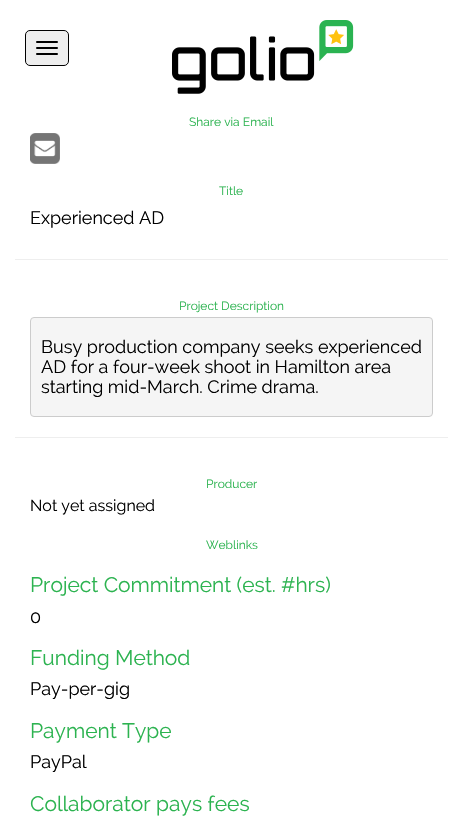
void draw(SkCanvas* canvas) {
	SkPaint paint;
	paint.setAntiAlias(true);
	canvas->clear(0xffffffff);
	paint.setColor(0xffeeeeee);
	canvas->drawRoundRect(SkRect::MakeXYWH(25.5, 30.5, 43, 35), 4.5, 4.5, paint);
	paint.setStroke(true);
	paint.setStrokeWidth(1);
	paint.setColor(0xff000000);
	canvas->drawRoundRect(SkRect::MakeXYWH(25.5, 30.5, 43, 35), 4.5, 4.5, paint);
	paint.setStroke(false);
	canvas->drawRoundRect(SkRect::MakeXYWH(36, 41, 22, 2), 1, 1, paint);
	canvas->drawRoundRect(SkRect::MakeXYWH(36, 47, 22, 2), 1, 1, paint);
	canvas->drawRoundRect(SkRect::MakeXYWH(36, 53, 22, 2), 1, 1, paint);
	canvas->drawImageRect(SkImages::DeferredFromEncodedData(SkData::MakeFromFileName("img1.png")), SkRect::MakeXYWH(172, 20, 182, 74), SkSamplingOptions());
	SkFont f1(fontMgr->matchFamilyStyle("Raleway", SkFontStyle::Normal()), 12);
	f1.setSubpixel(true);
	paint.setColor(0xff2cb350);
	canvas->drawString("Share via Email", 189, 126, f1, paint);
	canvas->drawImageRect(SkImages::DeferredFromEncodedData(SkData::MakeFromFileName("img2.png")), SkRect::MakeXYWH(30, 133, 30, 31), SkSamplingOptions());
	canvas->drawString("Title", 219, 195, f1, paint);
	SkFont f2(fontMgr->matchFamilyStyle("Raleway", SkFontStyle::Normal()), 18);
	f2.setSubpixel(true);
	paint.setColor(0xff000000);
	canvas->drawString("Experienced AD", 30, 224, f2, paint);
	paint.setColor(0xffeeeeee);
	canvas->drawRect(SkRect::MakeXYWH(15, 259, 433, 1), paint);
	paint.setColor(0xff2cb350);
	canvas->drawString("Project Description", 179, 310, f1, paint);
	paint.setColor(0xfff5f5f5);
	canvas->drawRoundRect(SkRect::MakeXYWH(30.5, 317.5, 402, 99), 3.5, 3.5, paint);
	paint.setStroke(true);
	paint.setColor(0xffcccccc);
	canvas->drawRoundRect(SkRect::MakeXYWH(30.5, 317.5, 402, 99), 3.5, 3.5, paint);
	paint.setStroke(false);
	paint.setColor(0xff000000);
	canvas->drawString("Busy production company seeks experienced", 41, 353, f2, paint);
	canvas->drawString("AD for a four-week shoot in Hamilton area", 41, 373, f2, paint);
	canvas->drawString("starting mid-March. Crime drama.", 41, 393, f2, paint);
	paint.setColor(0xffeeeeee);
	canvas->drawRect(SkRect::MakeXYWH(15, 437, 433, 1), paint);
	paint.setColor(0xff2cb350);
	canvas->drawString("Producer", 206, 488, f1, paint);
	SkFont f3(fontMgr->matchFamilyStyle("Raleway", SkFontStyle::Normal()), 16);
	f3.setSubpixel(true);
	paint.setColor(0xff000000);
	canvas->drawString("Not yet assigned", 30, 511, f3, paint);
	paint.setColor(0xff2cb350);
	canvas->drawString("Weblinks", 206, 549, f1, paint);
	SkFont f4(fontMgr->matchFamilyStyle("Raleway", SkFontStyle::Normal()), 21);
	f4.setSubpixel(true);
	canvas->drawString("Project Commitment (est. #hrs)", 30, 592, f4, paint);
	paint.setColor(0xff000000);
	canvas->drawString("0", 30, 623, f2, paint);
	paint.setColor(0xff2cb350);
	canvas->drawString("Funding Method", 30, 665, f4, paint);
	paint.setColor(0xff000000);
	canvas->drawString("Pay-per-gig", 30, 695, f2, paint);
	paint.setColor(0xff2cb350);
	canvas->drawString("Payment Type", 30, 738, f4, paint);
	paint.setColor(0xff000000);
	canvas->drawString("PayPal", 30, 768, f2, paint);
	paint.setColor(0xff2cb350);
	canvas->drawString("Collaborator pays fees", 30, 811, f4, paint);
}
